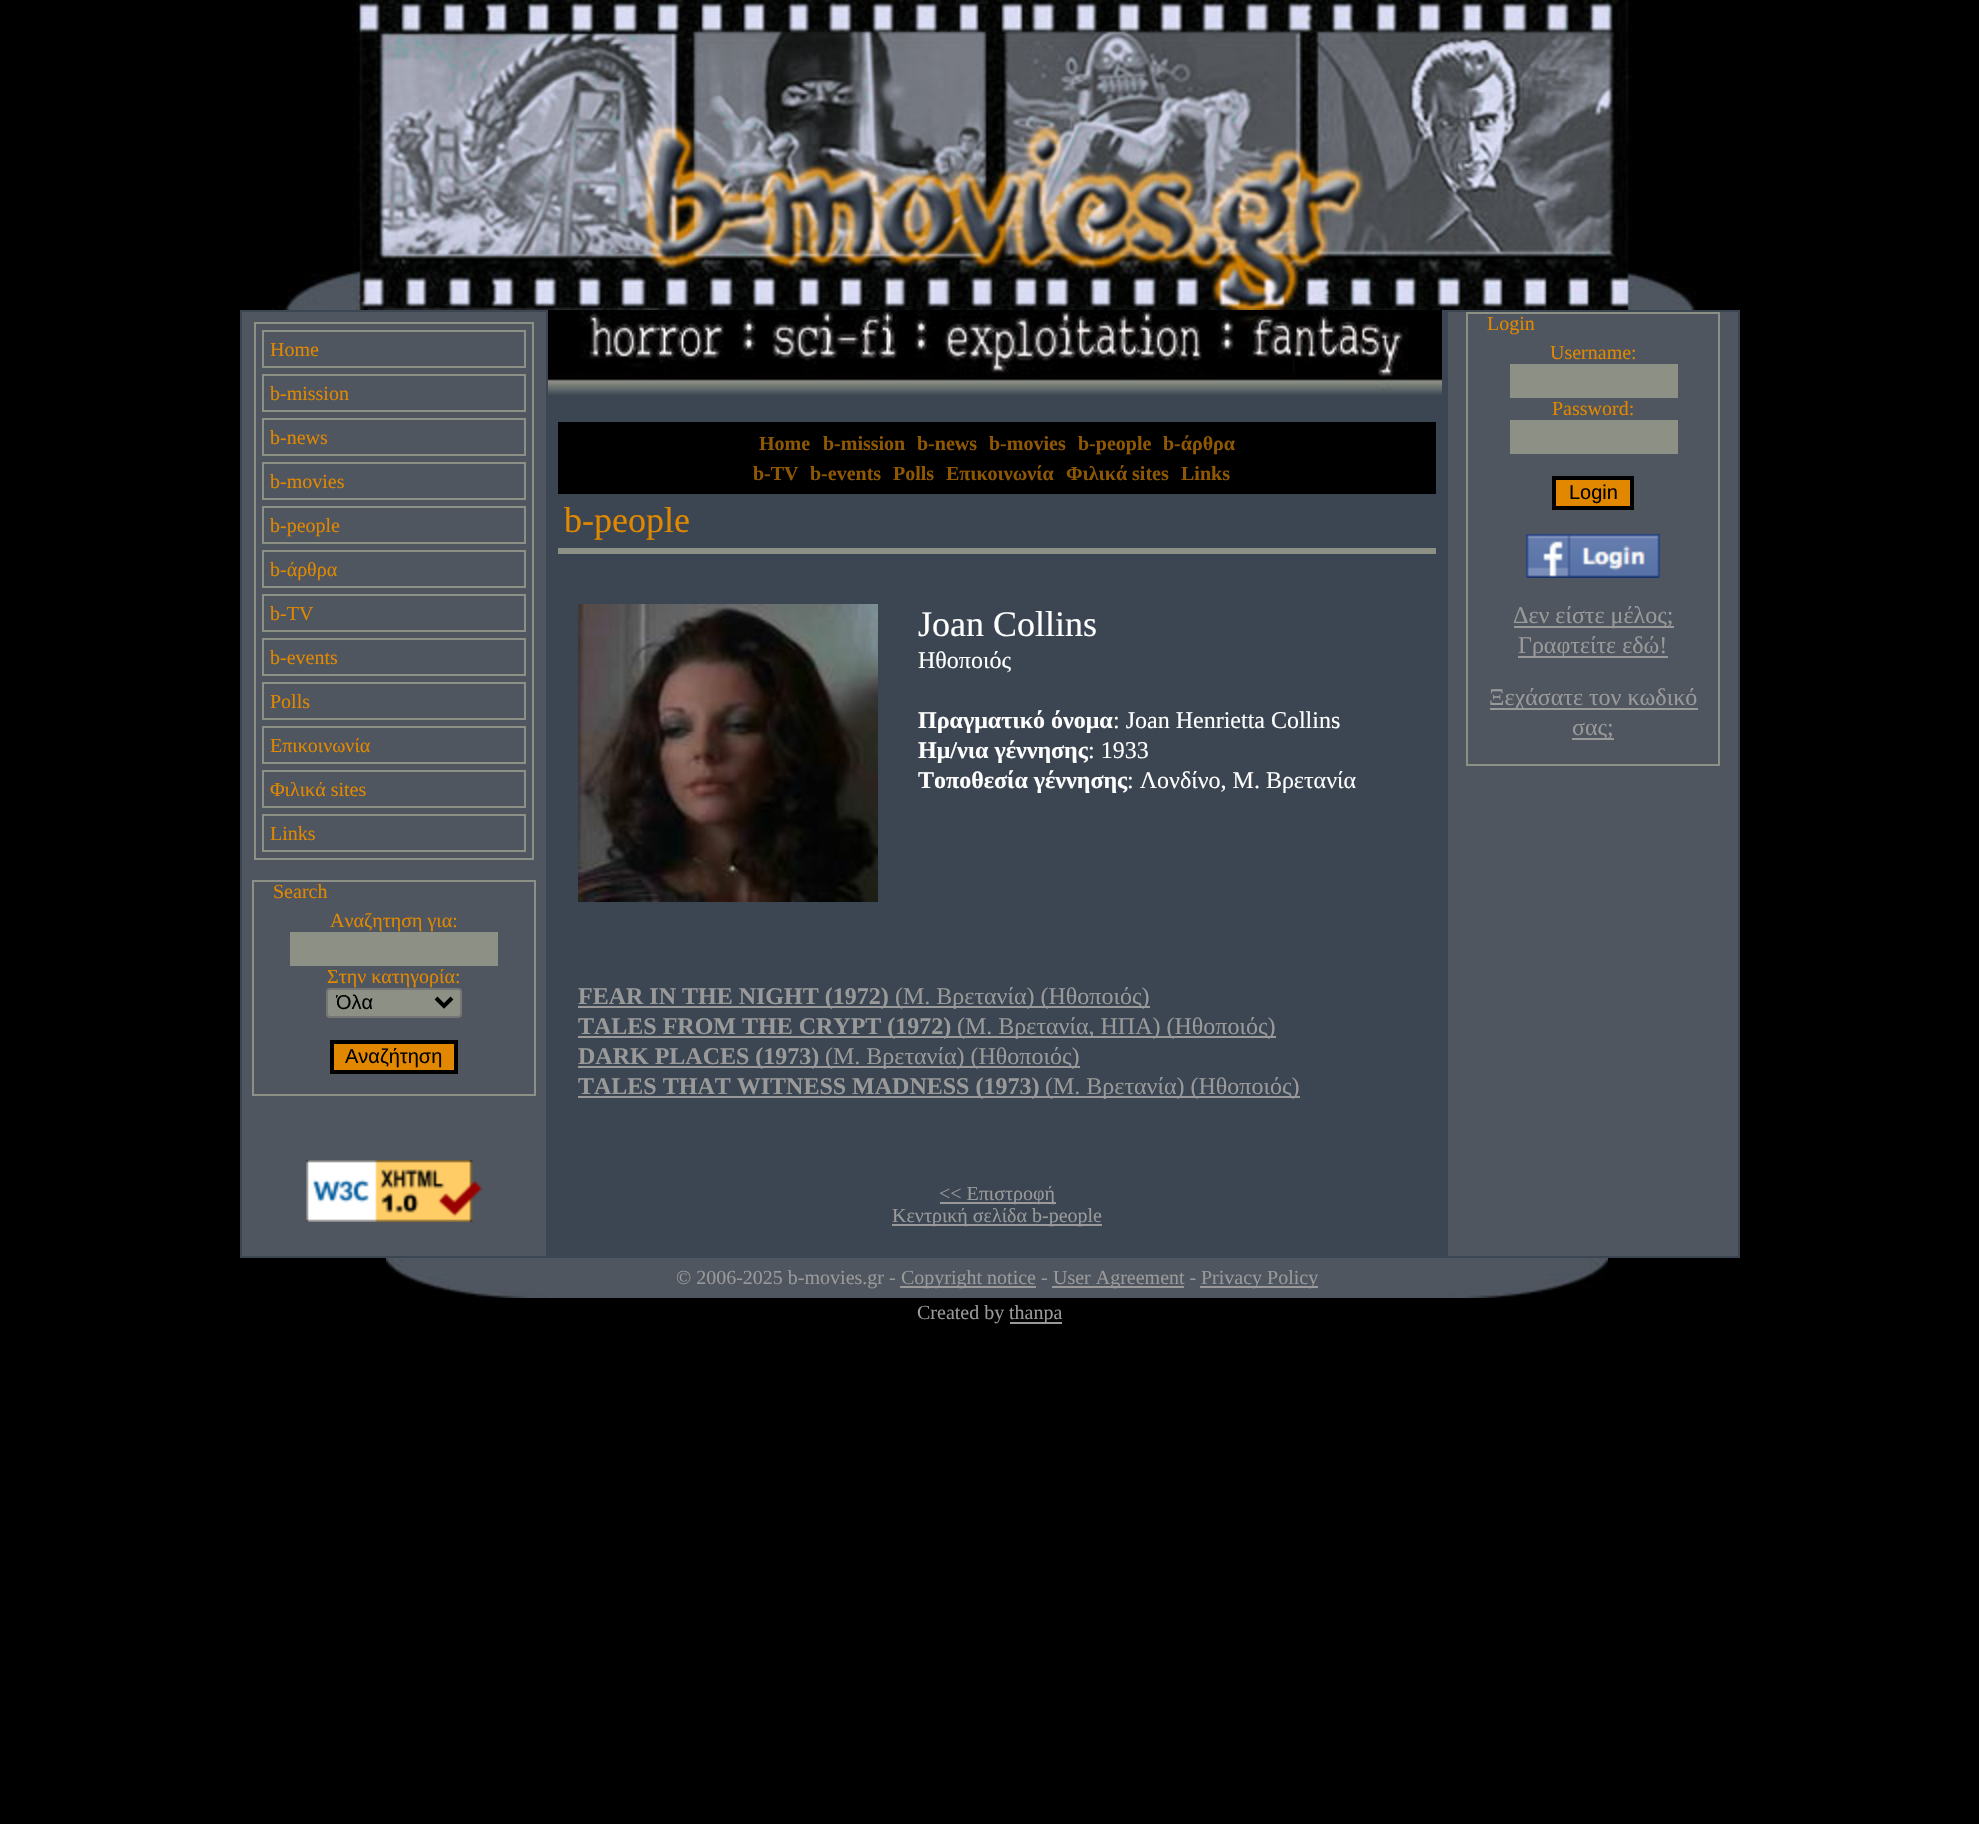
void draw(SkCanvas* canvas) {
	SkPaint paint;
	paint.setAntiAlias(true);
	auto svgPath = [&](const char* data, bool evenOdd = false) {
		SkPath result = *SkParsePath::FromSVGString(data);
		if (evenOdd) result.setFillType(SkPathFillType::kEvenOdd);
		return result;
	};
	canvas->clear(0xff000000);
	canvas->drawImageRect(SkImages::DeferredFromEncodedData(SkData::MakeFromFileName("img1.png")), SkRect::MakeXYWH(272, 0, 1424, 310), SkSamplingOptions());
	paint.setColor(0xff4f5660);
	canvas->drawRect(SkRect::MakeXYWH(241, 311, 306, 946), paint);
	paint.setStroke(true);
	paint.setStrokeWidth(2);
	paint.setColor(0xff3c4652);
	canvas->drawRect(SkRect::MakeXYWH(241, 311, 306, 946), paint);
	paint.setColor(0xff8d9185);
	canvas->drawRect(SkRect::MakeXYWH(255, 323, 278, 536), paint);
	canvas->drawRect(SkRect::MakeXYWH(263, 331, 262, 36), paint);
	SkFont f1(fontMgr->matchFamilyStyle("Liberation Serif", SkFontStyle::Normal()), 20);
	f1.setSubpixel(true);
	paint.setStroke(false);
	paint.setColor(0xffe18800);
	canvas->drawString("Home", 270, 356, f1, paint);
	paint.setStroke(true);
	paint.setColor(0xff8d9185);
	canvas->drawRect(SkRect::MakeXYWH(263, 375, 262, 36), paint);
	paint.setStroke(false);
	paint.setColor(0xffe18800);
	canvas->drawString("b-mission", 270, 400, f1, paint);
	paint.setStroke(true);
	paint.setColor(0xff8d9185);
	canvas->drawRect(SkRect::MakeXYWH(263, 419, 262, 36), paint);
	paint.setStroke(false);
	paint.setColor(0xffe18800);
	canvas->drawString("b-news", 270, 444, f1, paint);
	paint.setStroke(true);
	paint.setColor(0xff8d9185);
	canvas->drawRect(SkRect::MakeXYWH(263, 463, 262, 36), paint);
	paint.setStroke(false);
	paint.setColor(0xffe18800);
	canvas->drawString("b-movies", 270, 488, f1, paint);
	paint.setStroke(true);
	paint.setColor(0xff8d9185);
	canvas->drawRect(SkRect::MakeXYWH(263, 507, 262, 36), paint);
	paint.setStroke(false);
	paint.setColor(0xffe18800);
	canvas->drawString("b-people", 270, 532, f1, paint);
	paint.setStroke(true);
	paint.setColor(0xff8d9185);
	canvas->drawRect(SkRect::MakeXYWH(263, 551, 262, 36), paint);
	paint.setStroke(false);
	paint.setColor(0xffe18800);
	canvas->drawString("b-άρθρα", 270, 576, f1, paint);
	paint.setStroke(true);
	paint.setColor(0xff8d9185);
	canvas->drawRect(SkRect::MakeXYWH(263, 595, 262, 36), paint);
	paint.setStroke(false);
	paint.setColor(0xffe18800);
	canvas->drawString("b-TV", 270, 620, f1, paint);
	paint.setStroke(true);
	paint.setColor(0xff8d9185);
	canvas->drawRect(SkRect::MakeXYWH(263, 639, 262, 36), paint);
	paint.setStroke(false);
	paint.setColor(0xffe18800);
	canvas->drawString("b-events", 270, 664, f1, paint);
	paint.setStroke(true);
	paint.setColor(0xff8d9185);
	canvas->drawRect(SkRect::MakeXYWH(263, 683, 262, 36), paint);
	paint.setStroke(false);
	paint.setColor(0xffe18800);
	canvas->drawString("Polls", 270, 708, f1, paint);
	paint.setStroke(true);
	paint.setColor(0xff8d9185);
	canvas->drawRect(SkRect::MakeXYWH(263, 727, 262, 36), paint);
	paint.setStroke(false);
	paint.setColor(0xffe18800);
	canvas->drawString("Επικοινωνία", 270, 752, f1, paint);
	paint.setStroke(true);
	paint.setColor(0xff8d9185);
	canvas->drawRect(SkRect::MakeXYWH(263, 771, 262, 36), paint);
	paint.setStroke(false);
	paint.setColor(0xffe18800);
	canvas->drawString("Φιλικά sites", 270, 796, f1, paint);
	paint.setStroke(true);
	paint.setColor(0xff8d9185);
	canvas->drawRect(SkRect::MakeXYWH(263, 815, 262, 36), paint);
	paint.setStroke(false);
	paint.setColor(0xffe18800);
	canvas->drawString("Links", 270, 840, f1, paint);
	paint.setStroke(true);
	paint.setColor(0xff8d9185);
	canvas->drawRect(SkRect::MakeXYWH(253, 881, 282, 214), paint);
	paint.setStroke(false);
	paint.setColor(0xffe18800);
	canvas->drawString("Search", 273, 898, f1, paint);
	canvas->drawString("Αναζητηση για:", 330, 927, f1, paint);
	paint.setColor(0xff8d9185);
	canvas->drawRect(SkRect::MakeXYWH(290, 932, 208, 34), paint);
	paint.setColor(0xffe18800);
	canvas->drawString("Στην κατηγορία:", 327, 983, f1, paint);
	paint.setColor(0xff8d9185);
	canvas->drawRoundRect(SkRect::MakeXYWH(327, 989, 134, 28), 3, 3, paint);
	paint.setStroke(true);
	paint.setColor(0xff767676);
	canvas->drawRoundRect(SkRect::MakeXYWH(327, 989, 134, 28), 3, 3, paint);
	paint.setStrokeWidth(4);
	paint.setColor(0xff000000);
	canvas->drawPath(svgPath("M436 998L444 1006L452 998"), paint);
	canvas->save();
	canvas->clipRect(SkRect::MakeXYWH(336, 990, 92, 26));
	SkFont f2(fontMgr->matchFamilyStyle("Liberation Sans", SkFontStyle::Normal()), 20);
	f2.setSubpixel(true);
	paint.setStroke(false);
	canvas->drawString("Όλα", 336, 1009, f2, paint);
	canvas->restore();
	paint.setColor(0xffe18800);
	canvas->drawRect(SkRect::MakeXYWH(332, 1042, 124, 30), paint);
	paint.setStroke(true);
	paint.setColor(0xff000000);
	canvas->drawRect(SkRect::MakeXYWH(332, 1042, 124, 30), paint);
	paint.setStroke(false);
	canvas->drawString("Αναζήτηση", 345, 1063, f2, paint);
	canvas->drawImageRect(SkImages::DeferredFromEncodedData(SkData::MakeFromFileName("img2.png")), SkRect::MakeXYWH(306, 1160, 176, 62), SkSamplingOptions());
	paint.setColor(0xff3c4652);
	canvas->drawRect(SkRect::MakeXYWH(548, 310, 898, 948), paint);
	canvas->drawImageRect(SkImages::DeferredFromEncodedData(SkData::MakeFromFileName("img3.png")), SkRect::MakeXYWH(548, 310, 894, 85), SkSamplingOptions());
	paint.setColor(0xff000000);
	canvas->drawRect(SkRect::MakeXYWH(558, 422, 878, 72), paint);
	SkFont f3(fontMgr->matchFamilyStyle("Liberation Serif", SkFontStyle::Bold()), 20);
	f3.setSubpixel(true);
	paint.setColor(0xff8e5703);
	canvas->drawString("Home", 759, 450, f3, paint);
	canvas->drawString("b-mission", 823, 450, f3, paint);
	canvas->drawString("b-news", 917, 450, f3, paint);
	canvas->drawString("b-movies", 989, 450, f3, paint);
	canvas->drawString("b-people", 1078, 450, f3, paint);
	canvas->drawString("b-άρθρα", 1163, 450, f3, paint);
	canvas->drawString("b-TV", 753, 480, f3, paint);
	canvas->drawString("b-events", 810, 480, f3, paint);
	canvas->drawString("Polls", 893, 480, f3, paint);
	canvas->drawString("Επικοινωνία", 946, 480, f3, paint);
	canvas->drawString("Φιλικά sites", 1066, 480, f3, paint);
	canvas->drawString("Links", 1181, 480, f3, paint);
	paint.setColor(0xff8d9185);
	canvas->drawRect(SkRect::MakeXYWH(558, 548, 878, 6), paint);
	SkFont f4(fontMgr->matchFamilyStyle("Liberation Serif", SkFontStyle::Normal()), 36);
	f4.setSubpixel(true);
	paint.setColor(0xffe18800);
	canvas->drawString("b-people", 564, 532, f4, paint);
	canvas->drawImageRect(SkImages::DeferredFromEncodedData(SkData::MakeFromFileName("img4.png")), SkRect::MakeXYWH(578, 604, 300, 298), SkSamplingOptions());
	paint.setColor(0xffffffff);
	canvas->drawString("Joan Collins", 918, 636, f4, paint);
	SkFont f5(fontMgr->matchFamilyStyle("Liberation Serif", SkFontStyle::Normal()), 24);
	f5.setSubpixel(true);
	canvas->drawString("Ηθοποιός", 918, 668, f5, paint);
	SkFont f6(fontMgr->matchFamilyStyle("Liberation Serif", SkFontStyle::Bold()), 24);
	f6.setSubpixel(true);
	canvas->drawString("Πραγματικό όνομα", 918, 728, f6, paint);
	canvas->drawString(": Joan Henrietta Collins", 1113, 728, f5, paint);
	canvas->drawString("Ημ/νια γέννησης", 918, 758, f6, paint);
	canvas->drawString(": 1933", 1088, 758, f5, paint);
	canvas->drawString("Τοποθεσία γέννησης", 918, 788, f6, paint);
	canvas->drawString(": Λονδίνο, Μ. Βρετανία", 1127, 788, f5, paint);
	paint.setColor(0xff999999);
	canvas->drawRect(SkRect::MakeXYWH(578, 1006, 572, 2), paint);
	canvas->drawString("FEAR IN THE NIGHT (1972)", 578, 1004, f6, paint);
	canvas->drawString("(Μ. Βρετανία) (Ηθοποιός)", 895, 1004, f5, paint);
	canvas->drawRect(SkRect::MakeXYWH(578, 1036, 698, 2), paint);
	canvas->drawString("TALES FROM THE CRYPT (1972)", 578, 1034, f6, paint);
	canvas->drawString("(Μ. Βρετανία, ΗΠΑ) (Ηθοποιός)", 957, 1034, f5, paint);
	canvas->drawRect(SkRect::MakeXYWH(578, 1066, 502, 2), paint);
	canvas->drawString("DARK PLACES (1973)", 578, 1064, f6, paint);
	canvas->drawString("(Μ. Βρετανία) (Ηθοποιός)", 825, 1064, f5, paint);
	canvas->drawRect(SkRect::MakeXYWH(578, 1096, 722, 2), paint);
	canvas->drawString("TALES THAT WITNESS MADNESS (1973)", 578, 1094, f6, paint);
	canvas->drawString("(Μ. Βρετανία) (Ηθοποιός)", 1045, 1094, f5, paint);
	canvas->drawRect(SkRect::MakeXYWH(940, 1202, 116, 2), paint);
	canvas->drawString("<< Επιστροφή", 939, 1200, f1, paint);
	canvas->drawRect(SkRect::MakeXYWH(892, 1224, 210, 2), paint);
	canvas->drawString("Κεντρική σελίδα b-people", 892, 1222, f1, paint);
	paint.setColor(0xff4f5660);
	canvas->drawRect(SkRect::MakeXYWH(1447, 311, 292, 946), paint);
	paint.setStroke(true);
	paint.setStrokeWidth(2);
	paint.setColor(0xff3c4652);
	canvas->drawRect(SkRect::MakeXYWH(1447, 311, 292, 946), paint);
	paint.setColor(0xff8d9185);
	canvas->drawRect(SkRect::MakeXYWH(1467, 313, 252, 452), paint);
	paint.setStroke(false);
	paint.setColor(0xffe18800);
	canvas->drawString("Login", 1487, 330, f1, paint);
	canvas->drawString("Username:", 1550, 359, f1, paint);
	paint.setColor(0xff8d9185);
	canvas->drawRect(SkRect::MakeXYWH(1510, 364, 168, 34), paint);
	paint.setColor(0xffe18800);
	canvas->drawString("Password:", 1552, 415, f1, paint);
	paint.setColor(0xff8d9185);
	canvas->drawRect(SkRect::MakeXYWH(1510, 420, 168, 34), paint);
	paint.setColor(0xffe18800);
	canvas->drawRect(SkRect::MakeXYWH(1554, 478, 78, 30), paint);
	paint.setStroke(true);
	paint.setStrokeWidth(4);
	paint.setColor(0xff000000);
	canvas->drawRect(SkRect::MakeXYWH(1554, 478, 78, 30), paint);
	paint.setStroke(false);
	canvas->drawString("Login", 1569, 499, f2, paint);
	canvas->drawImageRect(SkImages::DeferredFromEncodedData(SkData::MakeFromFileName("img5.png")), SkRect::MakeXYWH(1526, 534, 134, 44), SkSamplingOptions());
	paint.setColor(0xff999999);
	canvas->drawRect(SkRect::MakeXYWH(1514, 626, 160, 2), paint);
	canvas->drawString("Δεν είστε μέλος;", 1513, 623, f5, paint);
	canvas->drawRect(SkRect::MakeXYWH(1518, 656, 150, 2), paint);
	canvas->drawString("Γραφτείτε εδώ!", 1518, 653, f5, paint);
	canvas->drawRect(SkRect::MakeXYWH(1490, 708, 208, 2), paint);
	canvas->drawString("Ξεχάσατε τον κωδικό", 1489, 705, f5, paint);
	canvas->drawRect(SkRect::MakeXYWH(1572, 738, 42, 2), paint);
	canvas->drawString("σας;", 1572, 735, f5, paint);
	canvas->drawImageRect(SkImages::DeferredFromEncodedData(SkData::MakeFromFileName("img6.png")), SkRect::MakeXYWH(386, 1258, 162, 40), SkSamplingOptions());
	paint.setColor(0xff4f5660);
	canvas->drawRect(SkRect::MakeXYWH(548, 1258, 898, 40), paint);
	paint.setColor(0xff999999);
	canvas->drawString("© 2006-2025 b-movies.gr -", 676, 1284, f1, paint);
	canvas->drawRect(SkRect::MakeXYWH(900, 1286, 136, 2), paint);
	canvas->drawString("Copyright notice -", 901, 1284, f1, paint);
	canvas->drawRect(SkRect::MakeXYWH(1052, 1286, 132, 2), paint);
	canvas->drawString("User Agreement -", 1053, 1284, f1, paint);
	canvas->drawRect(SkRect::MakeXYWH(1200, 1286, 118, 2), paint);
	canvas->drawString("Privacy Policy", 1201, 1284, f1, paint);
	canvas->drawImageRect(SkImages::DeferredFromEncodedData(SkData::MakeFromFileName("img7.png")), SkRect::MakeXYWH(1446, 1258, 162, 40), SkSamplingOptions());
	canvas->drawString("Created by", 917, 1319, f1, paint);
	canvas->drawRect(SkRect::MakeXYWH(1010, 1322, 52, 2), paint);
	canvas->drawString("thanpa", 1009, 1319, f1, paint);
}
